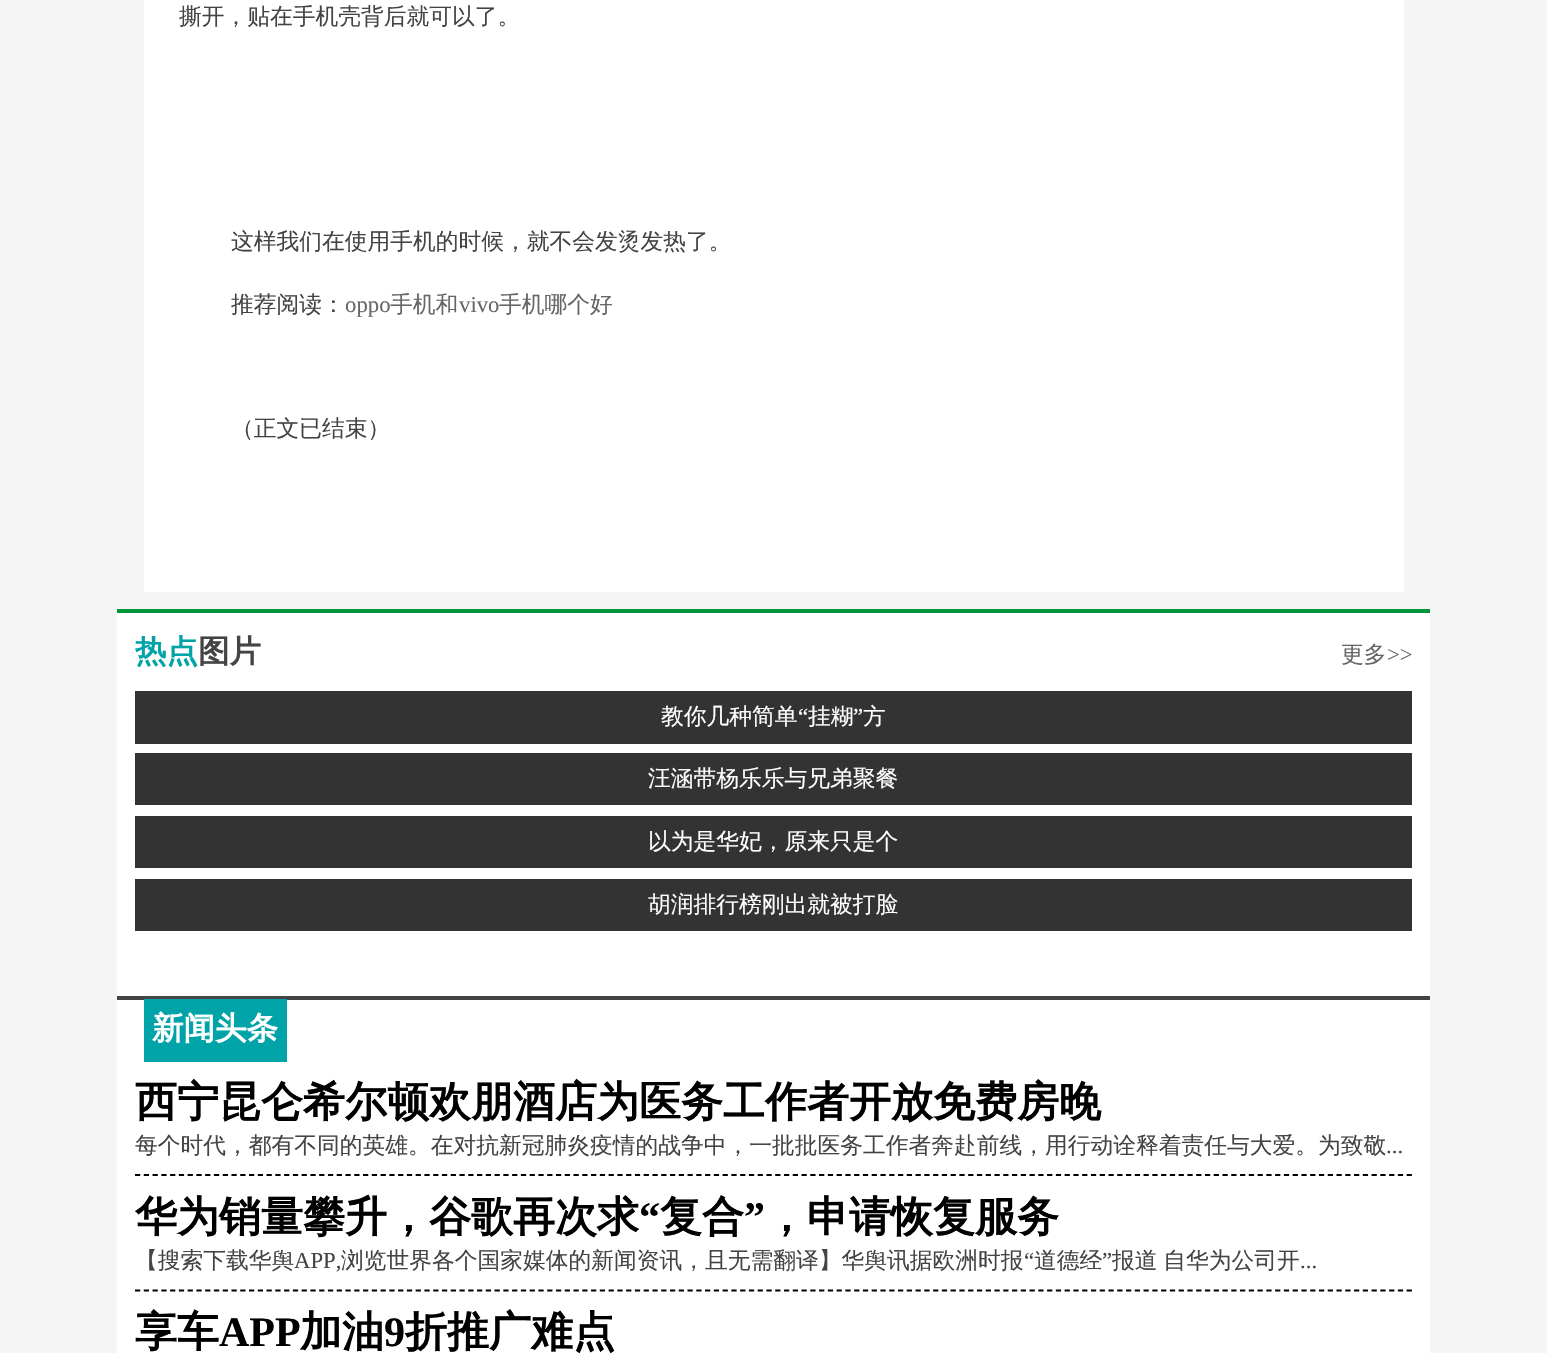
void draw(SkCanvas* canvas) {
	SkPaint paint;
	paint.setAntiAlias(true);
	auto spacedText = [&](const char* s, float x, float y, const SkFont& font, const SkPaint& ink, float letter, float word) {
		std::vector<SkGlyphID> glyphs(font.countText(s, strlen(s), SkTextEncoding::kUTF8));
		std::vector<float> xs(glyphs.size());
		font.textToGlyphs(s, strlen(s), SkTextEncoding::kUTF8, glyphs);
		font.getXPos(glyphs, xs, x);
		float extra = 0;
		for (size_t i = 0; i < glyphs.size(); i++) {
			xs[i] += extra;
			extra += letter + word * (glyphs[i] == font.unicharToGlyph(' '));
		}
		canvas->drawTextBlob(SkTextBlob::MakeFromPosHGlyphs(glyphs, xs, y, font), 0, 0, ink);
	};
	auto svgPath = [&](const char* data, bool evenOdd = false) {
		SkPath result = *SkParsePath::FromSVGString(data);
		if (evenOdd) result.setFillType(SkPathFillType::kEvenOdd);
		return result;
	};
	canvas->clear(0xfff5f5f5);
	paint.setColor(0xffffffff);
	canvas->drawRect(SkRect::MakeXYWH(144, 0, 1260, 592), paint);
	SkFont f1(fontMgr->matchFamilyStyle("WenQuanYi Zen Hei", SkFontStyle(500, SkFontStyle::kNormal_Width, SkFontStyle::kUpright_Slant)), 22.75);
	f1.setSubpixel(true);
	paint.setColor(0xff444444);
	canvas->drawString("撕开，贴在手机壳背后就可以了。", 179, 24, f1, paint);
	canvas->drawString("这样我们在使用手机的时候，就不会发烫发热了。", 231, 249, f1, paint);
	canvas->drawString("推荐阅读：", 231, 312, f1, paint);
	SkFont f2(fontMgr->matchFamilyStyle("Liberation Serif", SkFontStyle::Normal()), 22.75);
	f2.setSubpixel(true);
	paint.setColor(0xff666666);
	canvas->drawString("oppo", 345, 312, f2, paint);
	canvas->drawString("手机和", 390, 312, f1, paint);
	canvas->drawString("vivo", 459, 312, f2, paint);
	canvas->drawString("手机哪个好", 499, 312, f1, paint);
	paint.setColor(0xff444444);
	canvas->drawString("（正文已结束）", 231, 436, f1, paint);
	paint.setColor(0xffffffff);
	canvas->drawRect(SkRect::MakeXYWH(117, 613, 1313, 740), paint);
	paint.setColor(0xff00953b);
	canvas->drawRect(SkRect::MakeXYWH(117, 609, 1313, 4), paint);
	SkFont f3(fontMgr->matchFamilyStyle("WenQuanYi Zen Hei", SkFontStyle::Bold()), 31.5);
	f3.setSubpixel(true);
	paint.setColor(0xff00a4a8);
	canvas->drawString("热点", 135, 662, f3, paint);
	paint.setColor(0xff444444);
	canvas->drawString("图片", 198, 662, f3, paint);
	paint.setColor(0xff666666);
	canvas->drawString("更多", 1341, 662, f1, paint);
	canvas->drawString(">>", 1387, 662, f2, paint);
	paint.setColor(0xff333333);
	canvas->drawRect(SkRect::MakeXYWH(135, 691, 1277, 53), paint);
	paint.setColor(0xffffffff);
	canvas->drawString("教你几种简单", 661, 724, f1, paint);
	canvas->drawString("“", 798, 724, f2, paint);
	canvas->drawString("挂糊", 808, 724, f1, paint);
	canvas->drawString("”", 853, 724, f2, paint);
	canvas->drawString("方", 863, 724, f1, paint);
	paint.setColor(0xff333333);
	canvas->drawRect(SkRect::MakeXYWH(135, 753, 1277, 52), paint);
	paint.setColor(0xffffffff);
	canvas->drawString("汪涵带杨乐乐与兄弟聚餐", 648, 786, f1, paint);
	paint.setColor(0xff333333);
	canvas->drawRect(SkRect::MakeXYWH(135, 816, 1277, 52), paint);
	paint.setColor(0xffffffff);
	canvas->drawString("以为是华妃，原来只是个", 648, 849, f1, paint);
	paint.setColor(0xff333333);
	canvas->drawRect(SkRect::MakeXYWH(135, 879, 1277, 52), paint);
	paint.setColor(0xffffffff);
	canvas->drawString("胡润排行榜刚出就被打脸", 648, 912, f1, paint);
	paint.setColor(0xff444444);
	canvas->drawRect(SkRect::MakeXYWH(117, 996, 1313, 4), paint);
	paint.setColor(0xff00a4a8);
	canvas->drawRect(SkRect::MakeXYWH(144, 999, 143, 63), paint);
	paint.setColor(0xffffffff);
	canvas->drawString("新闻头条", 152, 1039, f3, paint);
	paint.setStroke(true);
	paint.setStrokeWidth(1.8);
	paint.setColor(0xff000000);
	paint.setPathEffect(SkDashPathEffect::Make({{5.25f, 3.52f}}, 0));
	canvas->drawPath(svgPath("M135 1175H1412"), paint);
	paint.setPathEffect(nullptr);
	SkFont f4(fontMgr->matchFamilyStyle("WenQuanYi Zen Hei", SkFontStyle::Bold()), 42);
	f4.setSubpixel(true);
	paint.setStroke(false);
	canvas->drawString("西宁昆仑希尔顿欢朋酒店为医务工作者开放免费房晚", 135, 1116, f4, paint);
	paint.setColor(0xff444444);
	canvas->drawString("每个时代，都有不同的英雄。在对抗新冠肺炎疫情的战争中，一批批医务工作者奔赴前线，用行动诠释着责任与大爱。为致敬", 135, 1153, f1, paint);
	canvas->drawString("...", 1386, 1153, f2, paint);
	paint.setStroke(true);
	paint.setColor(0xff000000);
	paint.setPathEffect(SkDashPathEffect::Make({{5.25f, 3.52f}}, 0));
	canvas->drawPath(svgPath("M135 1290.5H1412"), paint);
	paint.setPathEffect(nullptr);
	paint.setStroke(false);
	canvas->drawString("华为销量攀升，谷歌再次求", 135, 1231, f4, paint);
	SkFont f5(fontMgr->matchFamilyStyle("Liberation Serif", SkFontStyle::Bold()), 42);
	f5.setSubpixel(true);
	canvas->drawString("“", 639, 1231, f5, paint);
	canvas->drawString("复合", 660, 1231, f4, paint);
	canvas->drawString("”", 744, 1231, f5, paint);
	canvas->drawString("，申请恢复服务", 765, 1231, f4, paint);
	paint.setColor(0xff444444);
	canvas->drawString("【搜索下载华舆", 135, 1268, f1, paint);
	canvas->drawString("APP,", 294, 1268, f2, paint);
	canvas->drawString("浏览世界各个国家媒体的新闻资讯，且无需翻译】华舆讯据欧洲时报", 341, 1268, f1, paint);
	canvas->drawString("“", 1024, 1268, f2, paint);
	canvas->drawString("道德经", 1034, 1268, f1, paint);
	canvas->drawString("”", 1102, 1268, f2, paint);
	spacedText("报道 自华为公司开", 1112, 1268, f1, paint, 0, -1);
	canvas->drawString("...", 1300, 1268, f2, paint);
	paint.setColor(0xff000000);
	canvas->drawString("享车", 135, 1346, f4, paint);
	canvas->drawString("APP", 219, 1346, f5, paint);
	canvas->drawString("加油", 300, 1346, f4, paint);
	canvas->drawString("9", 384, 1346, f5, paint);
	canvas->drawString("折推广难点", 405, 1346, f4, paint);
}
